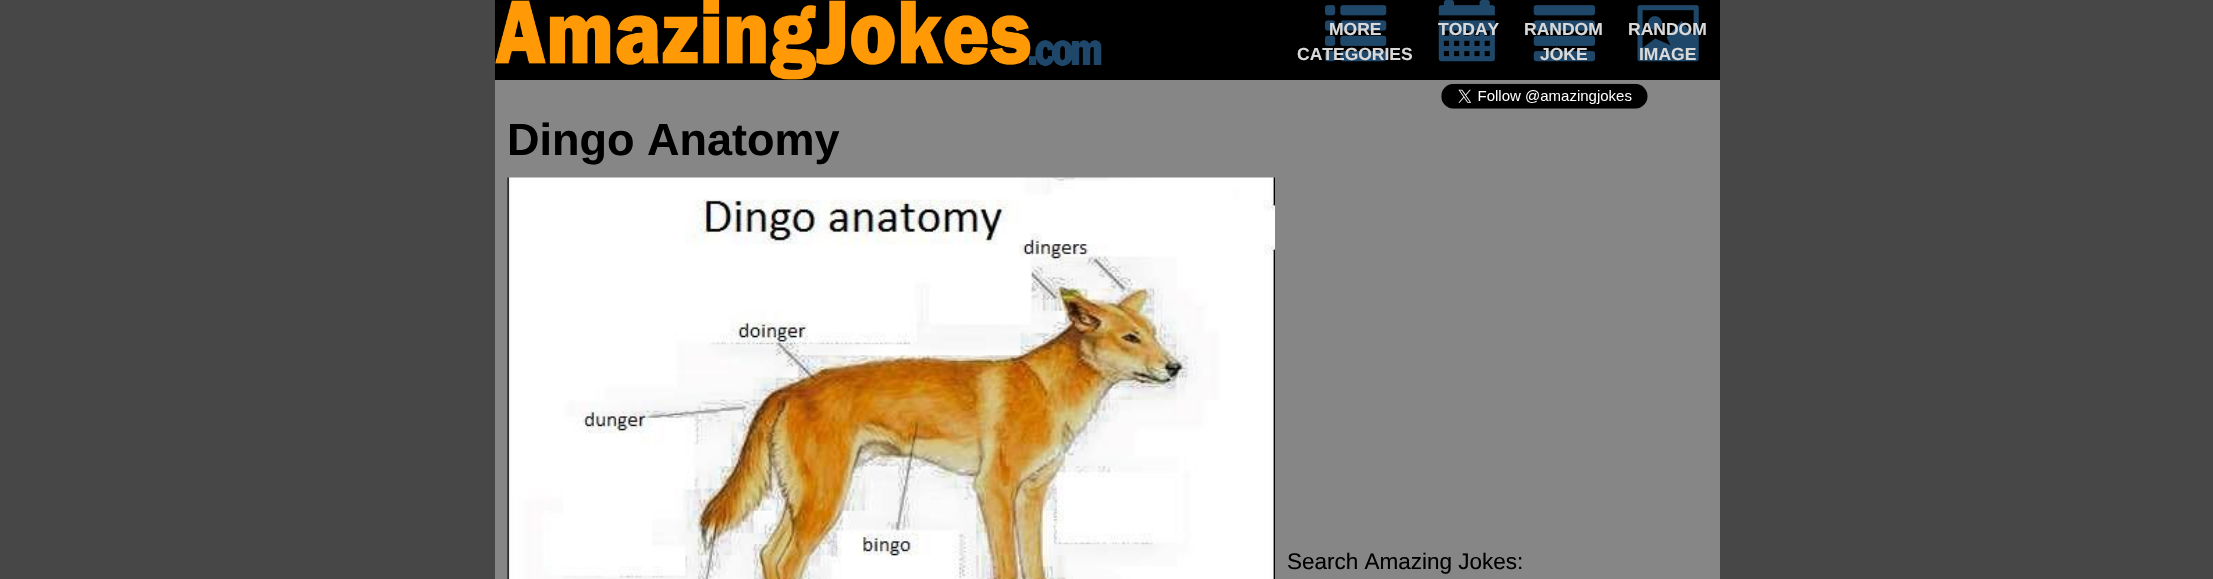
void draw(SkCanvas* canvas) {
	SkPaint paint;
	paint.setAntiAlias(true);
	canvas->clear(0xff474747);
	paint.setColor(0xff868686);
	canvas->drawRect(SkRect::MakeXYWH(495, 80, 1225, 499), paint);
	paint.setColor(0xff000000);
	canvas->drawRect(SkRect::MakeXYWH(495, 0, 1225, 80), paint);
	canvas->drawImageRect(SkImages::DeferredFromEncodedData(SkData::MakeFromFileName("img1.png")), SkRect::MakeXYWH(495, 0, 607, 80), SkSamplingOptions());
	canvas->drawImageRect(SkImages::DeferredFromEncodedData(SkData::MakeFromFileName("img2.png")), SkRect::MakeXYWH(1325, 5, 62, 57), SkSamplingOptions());
	SkFont f1(fontMgr->matchFamilyStyle("Liberation Sans", SkFontStyle::Bold()), 17.5);
	f1.setSubpixel(true);
	paint.setColor(0xffd9d9d9);
	canvas->drawString("MORE", 1329, 35, f1, paint);
	canvas->drawString("CATEGORIES", 1297, 60, f1, paint);
	canvas->drawImageRect(SkImages::DeferredFromEncodedData(SkData::MakeFromFileName("img3.png")), SkRect::MakeXYWH(1438, 0, 57, 62), SkSamplingOptions());
	canvas->drawString("TODAY", 1438, 35, f1, paint);
	canvas->drawImageRect(SkImages::DeferredFromEncodedData(SkData::MakeFromFileName("img4.png")), SkRect::MakeXYWH(1533, 5, 62, 57), SkSamplingOptions());
	canvas->drawString("RANDOM", 1524, 35, f1, paint);
	canvas->drawString("JOKE", 1540, 60, f1, paint);
	canvas->drawImageRect(SkImages::DeferredFromEncodedData(SkData::MakeFromFileName("img5.png")), SkRect::MakeXYWH(1637, 5, 62, 57), SkSamplingOptions());
	canvas->drawString("RANDOM", 1628, 35, f1, paint);
	canvas->drawString("IMAGE", 1639, 60, f1, paint);
	canvas->drawImageRect(SkImages::DeferredFromEncodedData(SkData::MakeFromFileName("img6.png")), SkRect::MakeXYWH(1441, 83, 207, 26), SkSamplingOptions());
	SkFont f2(fontMgr->matchFamilyStyle("Liberation Sans", SkFontStyle::Bold()), 45);
	f2.setSubpixel(true);
	paint.setColor(0xff000000);
	canvas->drawString("Dingo Anatomy", 507, 155, f2, paint);
	canvas->drawImageRect(SkImages::DeferredFromEncodedData(SkData::MakeFromFileName("img7.png")), SkRect::MakeXYWH(507, 177, 768, 402), SkSamplingOptions());
	SkFont f3(fontMgr->matchFamilyStyle("Liberation Sans", SkFontStyle::Normal()), 22.5);
	f3.setSubpixel(true);
	canvas->drawString("Search Amazing Jokes:", 1287, 569, f3, paint);
}
